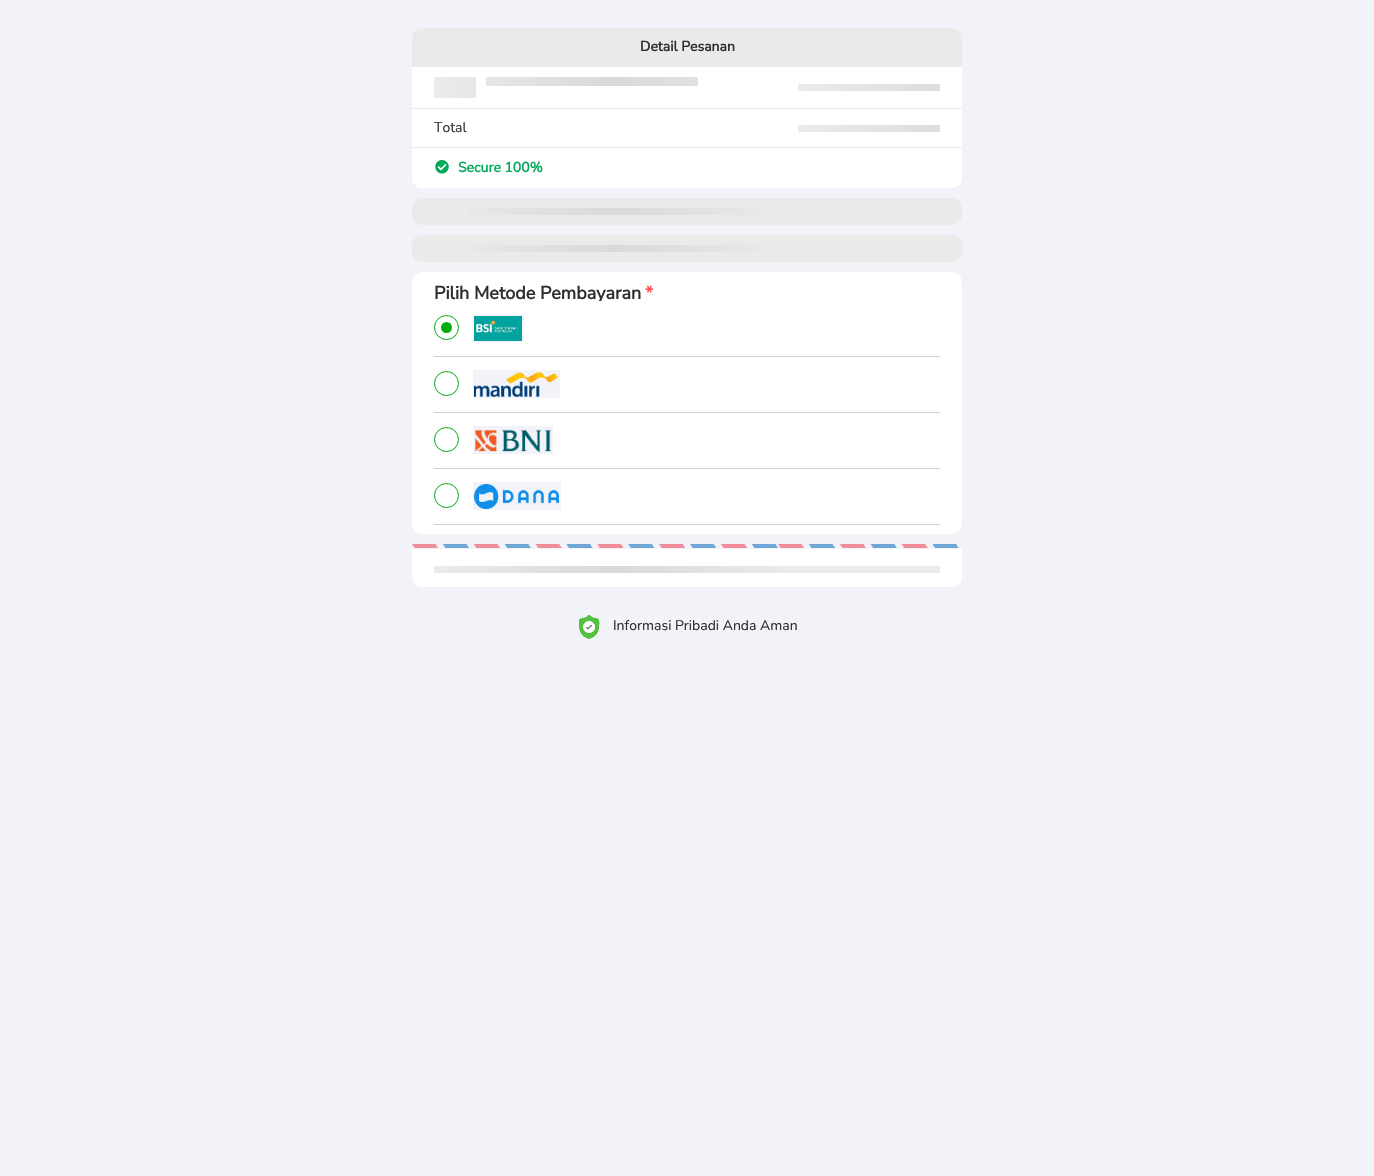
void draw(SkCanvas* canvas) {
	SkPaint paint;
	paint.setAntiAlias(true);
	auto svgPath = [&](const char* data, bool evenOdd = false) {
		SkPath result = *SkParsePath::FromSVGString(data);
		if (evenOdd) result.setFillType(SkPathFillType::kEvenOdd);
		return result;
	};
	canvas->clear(0xfff2f3f8);
	paint.setColor(0xffffffff);
	canvas->drawRoundRect(SkRect::MakeXYWH(412, 28, 550, 160), 10, 10, paint);
	paint.setColor(0xffeaeaea);
	canvas->drawPath(svgPath("M422 28H952C957.5 28 962 32.5 962 38V67H412V38C412 32.5 416.5 28 422 28Z"), paint);
	SkFont f1(fontMgr->matchFamilyStyle("Nunito Sans", SkFontStyle::Bold()), 14);
	f1.setSubpixel(true);
	paint.setColor(0xff2e2e31);
	canvas->drawString("Detail Pesanan", 640, 51, f1, paint);
	paint.setColor(0xffe9e9e9);
	canvas->drawRect(SkRect::MakeXYWH(412, 108, 550, 1), paint);
	{
		const SkColor colors[] = {0xffebebeb, 0xffd9d9d9, 0xffebebeb};
		const float stops[] = {0, 0.15, 0.3};
		const SkPoint ends[] = {{434, 88}, {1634, 87}};
		paint.setShader(SkGradientShader::MakeLinear(ends, colors, stops, 3, SkTileMode::kClamp));
		paint.setAlpha(255);
	}
	canvas->drawRect(SkRect::MakeXYWH(434, 77, 264, 21), paint);
	paint.setShader(nullptr);
	paint.setColor(0xffffffff);
	canvas->drawRect(SkRect::MakeXYWH(476, 77, 10, 9), paint);
	canvas->drawRect(SkRect::MakeXYWH(476, 86, 222, 12), paint);
	{
		const SkColor colors[] = {0xffebebeb, 0xffd9d9d9, 0xffebebeb};
		const float stops[] = {0, 0.15, 0.3};
		const SkPoint ends[] = {{798, 88}, {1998, 87}};
		paint.setShader(SkGradientShader::MakeLinear(ends, colors, stops, 3, SkTileMode::kClamp));
		paint.setAlpha(255);
	}
	canvas->drawRect(SkRect::MakeXYWH(798, 84, 142, 7), paint);
	SkFont f2(fontMgr->matchFamilyStyle("Nunito Sans", SkFontStyle(200, SkFontStyle::kNormal_Width, SkFontStyle::kUpright_Slant)), 14);
	f2.setSubpixel(true);
	paint.setShader(nullptr);
	paint.setColor(0xff2e2e31);
	canvas->drawString("Total", 434, 132, f2, paint);
	{
		const SkColor colors[] = {0xffebebeb, 0xffd9d9d9, 0xffebebeb};
		const float stops[] = {0, 0.15, 0.3};
		const SkPoint ends[] = {{798, 129}, {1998, 128}};
		paint.setShader(SkGradientShader::MakeLinear(ends, colors, stops, 3, SkTileMode::kClamp));
		paint.setAlpha(255);
	}
	canvas->drawRect(SkRect::MakeXYWH(798, 125, 142, 7), paint);
	paint.setShader(nullptr);
	paint.setColor(0xffffffff);
	canvas->drawPath(svgPath("M412 147H962V178C962 183.5 957.5 188 952 188H422C416.5 188 412 183.5 412 178Z"), paint);
	paint.setColor(0xffeaeaea);
	canvas->drawRect(SkRect::MakeXYWH(412, 147, 550, 1), paint);
	canvas->drawImageRect(SkImages::DeferredFromEncodedData(SkData::MakeFromFileName("img1.png")), SkRect::MakeXYWH(435, 160, 14, 14), SkSamplingOptions());
	paint.setColor(0xff00aa5b);
	canvas->drawString("Secure 100%", 458, 172, f1, paint);
	paint.setColor(0xffeaeaea);
	canvas->drawRoundRect(SkRect::MakeXYWH(412, 198, 550, 27), 10, 10, paint);
	{
		const SkColor colors[] = {0xffebebeb, 0xffd9d9d9, 0xffebebeb};
		const float stops[] = {0, 0.15, 0.3};
		const SkPoint ends[] = {{434, 212}, {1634, 211}};
		paint.setShader(SkGradientShader::MakeLinear(ends, colors, stops, 3, SkTileMode::kClamp));
		paint.setAlpha(255);
	}
	canvas->drawRect(SkRect::MakeXYWH(469, 208, 290, 7), paint);
	paint.setShader(nullptr);
	paint.setColor(0xffeaeaea);
	canvas->drawRoundRect(SkRect::MakeXYWH(412, 235, 550, 27), 10, 10, paint);
	{
		const SkColor colors[] = {0xffebebeb, 0xffd9d9d9, 0xffebebeb};
		const float stops[] = {0, 0.15, 0.3};
		const SkPoint ends[] = {{434, 249}, {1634, 248}};
		paint.setShader(SkGradientShader::MakeLinear(ends, colors, stops, 3, SkTileMode::kClamp));
		paint.setAlpha(255);
	}
	canvas->drawRect(SkRect::MakeXYWH(469, 245, 290, 7), paint);
	paint.setShader(nullptr);
	paint.setColor(0xffffffff);
	canvas->drawRoundRect(SkRect::MakeXYWH(412, 272, 550, 262), 10, 10, paint);
	SkFont f3(fontMgr->matchFamilyStyle("Nunito Sans", SkFontStyle::Bold()), 18);
	f3.setSubpixel(true);
	paint.setColor(0xff2e2e31);
	canvas->drawString("Pilih Metode Pembayaran", 434, 299, f3, paint);
	paint.setColor(0xffff5b5b);
	canvas->drawString("*", 645, 299, f3, paint);
	paint.setColor(0xffffffff);
	canvas->drawRect(SkRect::MakeXYWH(598, 301, 3, 2), paint);
	paint.setColor(0xffcbceda);
	canvas->drawRect(SkRect::MakeXYWH(434, 356, 506, 1), paint);
	paint.setStroke(true);
	paint.setStrokeWidth(1);
	paint.setColor(0xff01ac0f);
	canvas->drawCircle(446.5, 327.5, 12, paint);
	canvas->drawImageRect(SkImages::DeferredFromEncodedData(SkData::MakeFromFileName("img2.png")), SkRect::MakeXYWH(473, 314, 51, 28), SkSamplingOptions());
	paint.setStroke(false);
	canvas->drawCircle(446.5, 327.5, 5.5, paint);
	paint.setColor(0xffcbceda);
	canvas->drawRect(SkRect::MakeXYWH(434, 412, 506, 1), paint);
	paint.setStroke(true);
	paint.setColor(0xff01ac0f);
	canvas->drawCircle(446.5, 383.5, 12, paint);
	canvas->drawImageRect(SkImages::DeferredFromEncodedData(SkData::MakeFromFileName("img3.png")), SkRect::MakeXYWH(473, 370, 87, 28), SkSamplingOptions());
	paint.setStroke(false);
	paint.setColor(0xffcbceda);
	canvas->drawRect(SkRect::MakeXYWH(434, 468, 506, 1), paint);
	paint.setStroke(true);
	paint.setColor(0xff01ac0f);
	canvas->drawCircle(446.5, 439.5, 12, paint);
	canvas->drawImageRect(SkImages::DeferredFromEncodedData(SkData::MakeFromFileName("img4.png")), SkRect::MakeXYWH(473, 426, 80, 28), SkSamplingOptions());
	paint.setStroke(false);
	paint.setColor(0xffcbceda);
	canvas->drawRect(SkRect::MakeXYWH(434, 524, 506, 1), paint);
	paint.setStroke(true);
	paint.setColor(0xff01ac0f);
	canvas->drawCircle(446.5, 495.5, 12, paint);
	canvas->drawImageRect(SkImages::DeferredFromEncodedData(SkData::MakeFromFileName("img5.png")), SkRect::MakeXYWH(473, 482, 88, 28), SkSamplingOptions());
	paint.setStroke(false);
	paint.setColor(0xffffffff);
	canvas->drawPath(svgPath("M412 544H962V577C962 582.5 957.5 587 952 587H422C416.5 587 412 582.5 412 577Z"), paint);
	canvas->drawImageRect(SkImages::DeferredFromEncodedData(SkData::MakeFromFileName("img6.png")), SkRect::MakeXYWH(412, 544, 550, 5), SkSamplingOptions());
	{
		const SkColor colors[] = {0xffebebeb, 0xffd9d9d9, 0xffebebeb};
		const float stops[] = {0, 0.15, 0.3};
		const SkPoint ends[] = {{434, 570}, {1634, 570}};
		paint.setShader(SkGradientShader::MakeLinear(ends, colors, stops, 3, SkTileMode::kClamp));
		paint.setAlpha(255);
	}
	canvas->drawRect(SkRect::MakeXYWH(434, 566, 506, 7), paint);
	canvas->drawImageRect(SkImages::DeferredFromEncodedData(SkData::MakeFromFileName("img7.png")), SkRect::MakeXYWH(579, 615, 21, 24), SkSamplingOptions());
	paint.setShader(nullptr);
	paint.setColor(0xff2e2e31);
	canvas->drawString("Informasi Pribadi Anda Aman", 613, 630, f2, paint);
}
